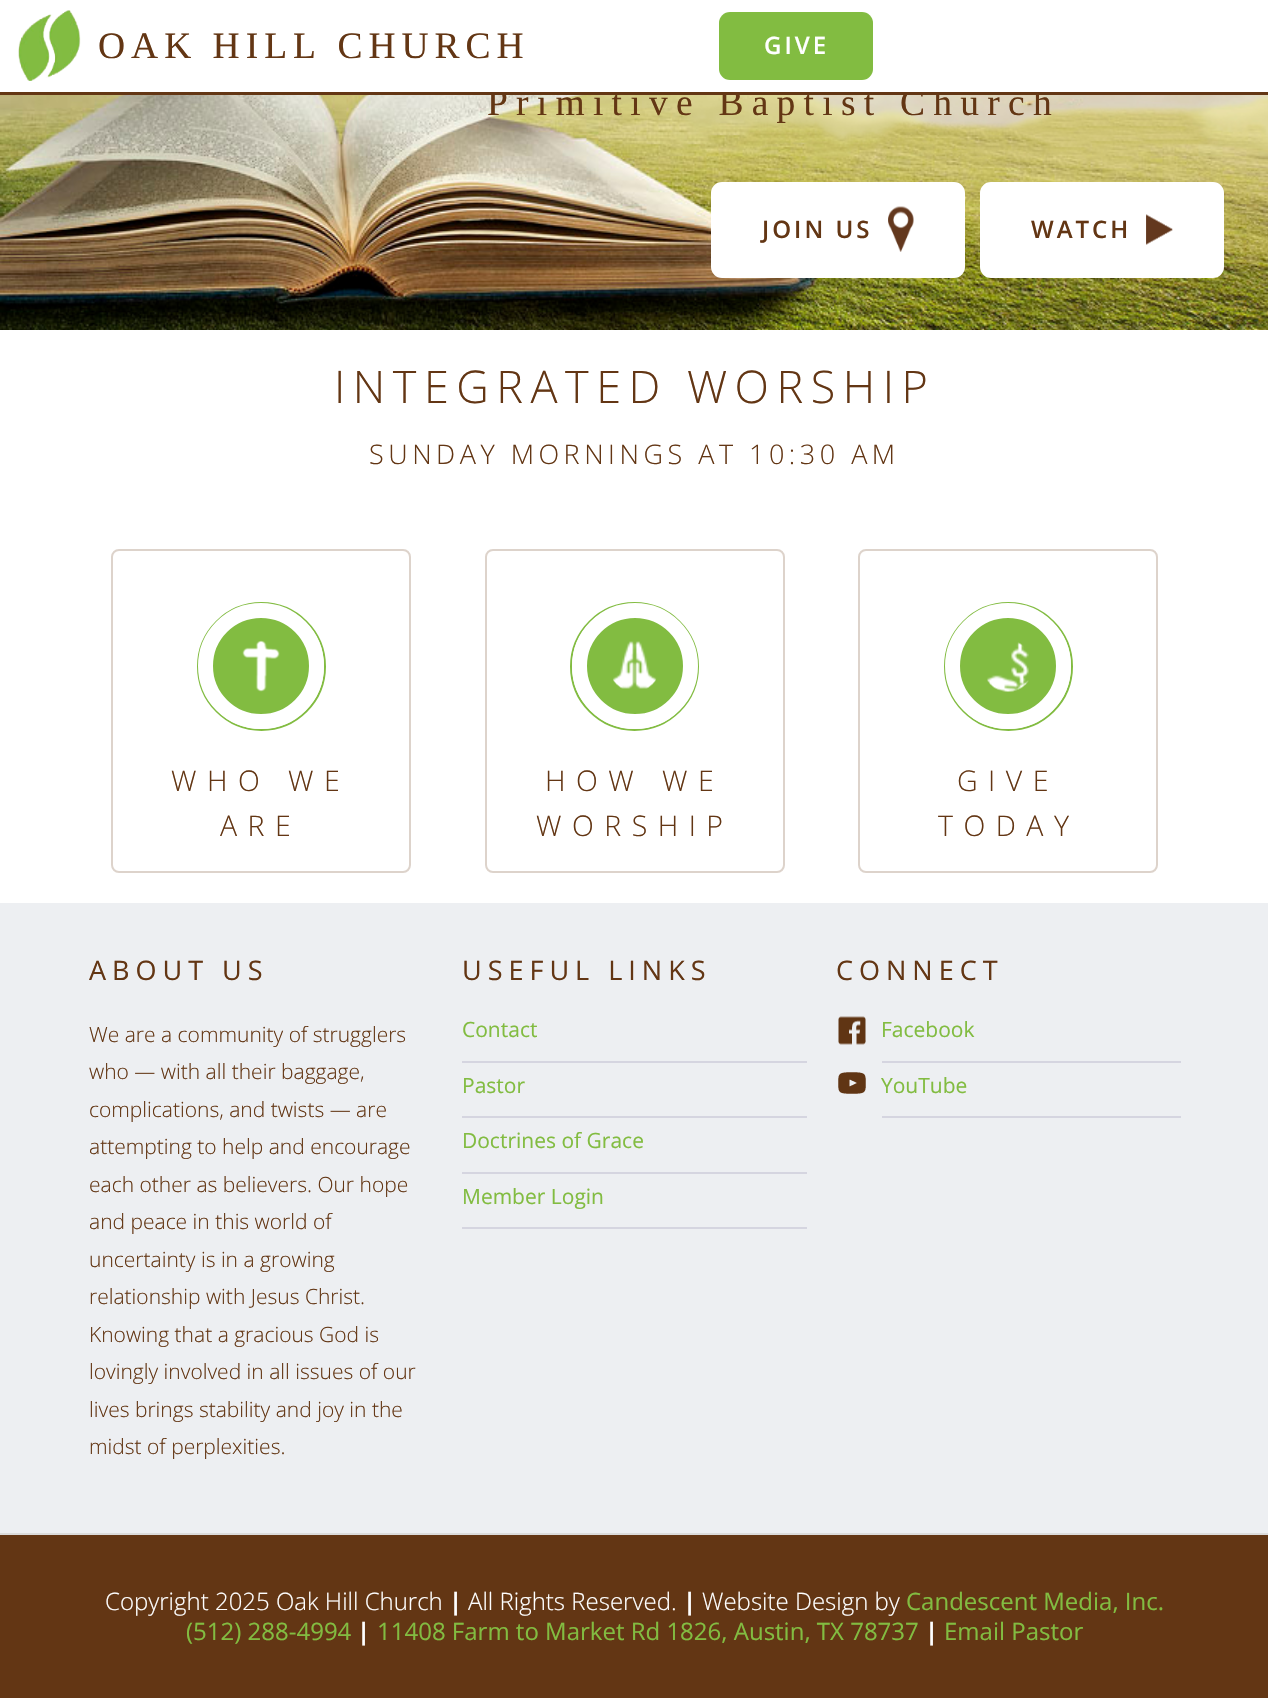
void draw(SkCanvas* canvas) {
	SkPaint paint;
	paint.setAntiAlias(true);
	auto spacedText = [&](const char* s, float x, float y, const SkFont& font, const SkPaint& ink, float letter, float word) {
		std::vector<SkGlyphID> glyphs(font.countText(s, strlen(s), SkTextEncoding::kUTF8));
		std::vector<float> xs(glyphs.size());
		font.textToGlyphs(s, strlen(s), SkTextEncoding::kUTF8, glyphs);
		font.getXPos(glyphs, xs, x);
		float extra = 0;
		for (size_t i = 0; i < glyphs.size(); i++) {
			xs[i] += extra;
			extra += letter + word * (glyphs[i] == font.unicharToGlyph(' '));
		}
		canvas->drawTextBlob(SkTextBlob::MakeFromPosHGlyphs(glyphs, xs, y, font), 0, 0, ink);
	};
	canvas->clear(0xffedeff2);
	canvas->drawImageRect(SkImages::DeferredFromEncodedData(SkData::MakeFromFileName("img2.png")), SkRect::MakeXYWH(0, 95, 1268, 235), SkSamplingOptions());
	SkFont f1(fontMgr->matchFamilyStyle("Liberation Serif", SkFontStyle::Normal()), 37.5);
	f1.setSubpixel(true);
	paint.setColor(0xff633614);
	spacedText("Primitive Baptist Church", 487, 115, f1, paint, 8.25, 0);
	paint.setColor(0xffffffff);
	canvas->drawRect(SkRect::MakeXYWH(0, 0, 1268, 92), paint);
	paint.setColor(0xff633614);
	canvas->drawRect(SkRect::MakeXYWH(0, 92, 1268, 3), paint);
	canvas->drawImageRect(SkImages::DeferredFromEncodedData(SkData::MakeFromFileName("img1.png")), SkRect::MakeXYWH(18, 10, 63, 71), SkSamplingOptions());
	spacedText("OAK HILL CHURCH", 98, 58, f1, paint, 6, 0);
	paint.setColor(0xff82bc41);
	canvas->drawRoundRect(SkRect::MakeXYWH(719, 12, 154, 68), 11, 11, paint);
	SkFont f2(fontMgr->matchFamilyStyle("Open Sans", SkFontStyle(600, SkFontStyle::kNormal_Width, SkFontStyle::kUpright_Slant)), 24);
	f2.setSubpixel(true);
	paint.setColor(0xffffffff);
	spacedText("GIVE", 764, 54, f2, paint, 3, 0);
	canvas->drawRoundRect(SkRect::MakeXYWH(714, 185, 248, 90), 8, 8, paint);
	paint.setStroke(true);
	paint.setStrokeWidth(6);
	canvas->drawRoundRect(SkRect::MakeXYWH(714, 185, 248, 90), 8, 8, paint);
	paint.setStroke(false);
	paint.setColor(0xff633614);
	spacedText("JOIN US", 762, 238, f2, paint, 3, 0);
	canvas->drawImageRect(SkImages::DeferredFromEncodedData(SkData::MakeFromFileName("img3.png")), SkRect::MakeXYWH(888, 206, 26, 46), SkSamplingOptions());
	paint.setColor(0xffffffff);
	canvas->drawRoundRect(SkRect::MakeXYWH(983, 185, 238, 90), 8, 8, paint);
	paint.setStroke(true);
	canvas->drawRoundRect(SkRect::MakeXYWH(983, 185, 238, 90), 8, 8, paint);
	paint.setStroke(false);
	paint.setColor(0xff633614);
	spacedText("WATCH", 1031, 238, f2, paint, 3, 0);
	canvas->drawImageRect(SkImages::DeferredFromEncodedData(SkData::MakeFromFileName("img4.png")), SkRect::MakeXYWH(1146, 214, 27, 31), SkSamplingOptions());
	paint.setColor(0xffffffff);
	canvas->drawRect(SkRect::MakeXYWH(0, 330, 1268, 573), paint);
	SkFont f3(fontMgr->matchFamilyStyle("Open Sans", SkFontStyle(300, SkFontStyle::kNormal_Width, SkFontStyle::kUpright_Slant)), 45);
	f3.setSubpixel(true);
	paint.setColor(0xff633614);
	spacedText("INTEGRATED WORSHIP", 334, 403, f3, paint, 7.5, 0);
	SkFont f4(fontMgr->matchFamilyStyle("Open Sans", SkFontStyle(300, SkFontStyle::kNormal_Width, SkFontStyle::kUpright_Slant)), 27);
	f4.setSubpixel(true);
	spacedText("SUNDAY MORNINGS AT 10:30 AM", 369, 464, f4, paint, 4.5, 0);
	paint.setStroke(true);
	paint.setStrokeWidth(2);
	paint.setColor(0xffddd3cb);
	canvas->drawRoundRect(SkRect::MakeXYWH(112, 550, 298, 322), 7, 7, paint);
	paint.setColor(0xff82bc41);
	canvas->drawCircle(261.5, 666.5, 63.5, paint);
	paint.setStroke(false);
	canvas->drawCircle(261, 666, 55.5, paint);
	paint.setStroke(true);
	paint.setStrokeWidth(15);
	paint.setColor(0xffffffff);
	canvas->drawCircle(261, 666, 55.5, paint);
	canvas->drawImageRect(SkImages::DeferredFromEncodedData(SkData::MakeFromFileName("img5.png")), SkRect::MakeXYWH(242, 640, 38, 52), SkSamplingOptions());
	SkFont f5(fontMgr->matchFamilyStyle("Open Sans", SkFontStyle(300, SkFontStyle::kNormal_Width, SkFontStyle::kUpright_Slant)), 28.5);
	f5.setSubpixel(true);
	paint.setStroke(false);
	paint.setColor(0xff633614);
	spacedText("WHO WE", 171, 791, f5, paint, 10.5, 0);
	spacedText("ARE", 220, 836, f5, paint, 10.5, 0);
	paint.setStroke(true);
	paint.setStrokeWidth(2);
	paint.setColor(0xffddd3cb);
	canvas->drawRoundRect(SkRect::MakeXYWH(486, 550, 298, 322), 7, 7, paint);
	paint.setColor(0xff82bc41);
	canvas->drawCircle(634.5, 666.5, 63.5, paint);
	paint.setStroke(false);
	canvas->drawCircle(635, 666, 55.5, paint);
	paint.setStroke(true);
	paint.setStrokeWidth(15);
	paint.setColor(0xffffffff);
	canvas->drawCircle(635, 666, 55.5, paint);
	canvas->drawImageRect(SkImages::DeferredFromEncodedData(SkData::MakeFromFileName("img6.png")), SkRect::MakeXYWH(613, 641, 44, 48), SkSamplingOptions());
	paint.setStroke(false);
	paint.setColor(0xff633614);
	spacedText("HOW WE", 545, 791, f5, paint, 10.5, 0);
	spacedText("WORSHIP", 536, 836, f5, paint, 10.5, 0);
	paint.setStroke(true);
	paint.setStrokeWidth(2);
	paint.setColor(0xffddd3cb);
	canvas->drawRoundRect(SkRect::MakeXYWH(859, 550, 298, 322), 7, 7, paint);
	paint.setColor(0xff82bc41);
	canvas->drawCircle(1008.5, 666.5, 63.5, paint);
	paint.setStroke(false);
	canvas->drawCircle(1008, 666, 55.5, paint);
	paint.setStroke(true);
	paint.setStrokeWidth(15);
	paint.setColor(0xffffffff);
	canvas->drawCircle(1008, 666, 55.5, paint);
	canvas->drawImageRect(SkImages::DeferredFromEncodedData(SkData::MakeFromFileName("img7.png")), SkRect::MakeXYWH(987, 642, 42, 50), SkSamplingOptions());
	paint.setStroke(false);
	paint.setColor(0xff633614);
	spacedText("GIVE", 957, 791, f5, paint, 10.5, 0);
	spacedText("TODAY", 938, 836, f5, paint, 10.5, 0);
	SkFont f6(fontMgr->matchFamilyStyle("Open Sans", SkFontStyle::Normal()), 27);
	f6.setSubpixel(true);
	spacedText("ABOUT US", 89, 980, f6, paint, 6, 0);
	SkFont f7(fontMgr->matchFamilyStyle("Open Sans", SkFontStyle(300, SkFontStyle::kNormal_Width, SkFontStyle::kUpright_Slant)), 21);
	f7.setSubpixel(true);
	canvas->drawString("We are a community of strugglers", 89, 1042, f7, paint);
	canvas->drawString("who — with all their baggage,", 89, 1079, f7, paint);
	canvas->drawString("complications, and twists — are", 89, 1117, f7, paint);
	canvas->drawString("attempting to help and encourage", 89, 1154, f7, paint);
	canvas->drawString("each other as believers. Our hope", 89, 1192, f7, paint);
	canvas->drawString("and peace in this world of", 89, 1229, f7, paint);
	canvas->drawString("uncertainty is in a growing", 89, 1267, f7, paint);
	canvas->drawString("relationship with Jesus Christ.", 89, 1304, f7, paint);
	canvas->drawString("Knowing that a gracious God is", 89, 1342, f7, paint);
	canvas->drawString("lovingly involved in all issues of our", 89, 1379, f7, paint);
	canvas->drawString("lives brings stability and joy in the", 89, 1417, f7, paint);
	canvas->drawString("midst of perplexities.", 89, 1454, f7, paint);
	spacedText("USEFUL LINKS", 462, 980, f6, paint, 6, 0);
	paint.setColor(0xffd5d5e0);
	canvas->drawRect(SkRect::MakeXYWH(462, 1061, 345, 2), paint);
	SkFont f8(fontMgr->matchFamilyStyle("Open Sans", SkFontStyle::Normal()), 21);
	f8.setSubpixel(true);
	paint.setColor(0xff82bc41);
	canvas->drawString("Contact", 462, 1037, f8, paint);
	paint.setColor(0xffd5d5e0);
	canvas->drawRect(SkRect::MakeXYWH(462, 1116, 345, 2), paint);
	paint.setColor(0xff82bc41);
	canvas->drawString("Pastor", 462, 1093, f8, paint);
	paint.setColor(0xffd5d5e0);
	canvas->drawRect(SkRect::MakeXYWH(462, 1172, 345, 2), paint);
	paint.setColor(0xff82bc41);
	canvas->drawString("Doctrines of Grace", 462, 1148, f8, paint);
	paint.setColor(0xffd5d5e0);
	canvas->drawRect(SkRect::MakeXYWH(462, 1227, 345, 2), paint);
	paint.setColor(0xff82bc41);
	canvas->drawString("Member Login", 462, 1204, f8, paint);
	paint.setColor(0xff633614);
	spacedText("CONNECT", 836, 980, f6, paint, 6, 0);
	canvas->drawImageRect(SkImages::DeferredFromEncodedData(SkData::MakeFromFileName("img8.png")), SkRect::MakeXYWH(838, 1016, 28, 29), SkSamplingOptions());
	paint.setColor(0xffd5d5e0);
	canvas->drawRect(SkRect::MakeXYWH(882, 1061, 299, 2), paint);
	paint.setColor(0xff82bc41);
	canvas->drawString("Facebook", 881, 1037, f8, paint);
	canvas->drawImageRect(SkImages::DeferredFromEncodedData(SkData::MakeFromFileName("img9.png")), SkRect::MakeXYWH(838, 1072, 28, 22), SkSamplingOptions());
	paint.setColor(0xffd5d5e0);
	canvas->drawRect(SkRect::MakeXYWH(882, 1116, 299, 2), paint);
	paint.setColor(0xff82bc41);
	canvas->drawString("YouTube", 881, 1093, f8, paint);
	paint.setColor(0xff633614);
	canvas->drawRect(SkRect::MakeXYWH(0, 1535, 1268, 163), paint);
	paint.setColor(0xffdbdbdb);
	canvas->drawRect(SkRect::MakeXYWH(0, 1533, 1268, 2), paint);
	SkFont f9(fontMgr->matchFamilyStyle("Open Sans", SkFontStyle(300, SkFontStyle::kNormal_Width, SkFontStyle::kUpright_Slant)), 24);
	f9.setSubpixel(true);
	paint.setColor(0xffffffff);
	canvas->drawString("Copyright 2025 Oak Hill Church", 105, 1610, f9, paint);
	SkFont f10(fontMgr->matchFamilyStyle("Open Sans", SkFontStyle::Bold()), 24);
	f10.setSubpixel(true);
	canvas->drawString("|", 449, 1610, f10, paint);
	canvas->drawString("All Rights Reserved.", 468, 1610, f9, paint);
	canvas->drawString("|", 683, 1610, f10, paint);
	canvas->drawString("Website Design by", 702, 1610, f9, paint);
	SkFont f11(fontMgr->matchFamilyStyle("Open Sans", SkFontStyle::Normal()), 24);
	f11.setSubpixel(true);
	paint.setColor(0xff82bc41);
	canvas->drawString("Candescent Media, Inc.", 906, 1610, f11, paint);
	canvas->drawString("(512) 288-4994", 186, 1640, f11, paint);
	paint.setColor(0xffffffff);
	canvas->drawString("|", 357, 1640, f10, paint);
	paint.setColor(0xff82bc41);
	canvas->drawString("11408 Farm to Market Rd 1826, Austin, TX 78737", 377, 1640, f11, paint);
	paint.setColor(0xffffffff);
	canvas->drawString("|", 925, 1640, f10, paint);
	paint.setColor(0xff82bc41);
	canvas->drawString("Email Pastor", 944, 1640, f11, paint);
}
